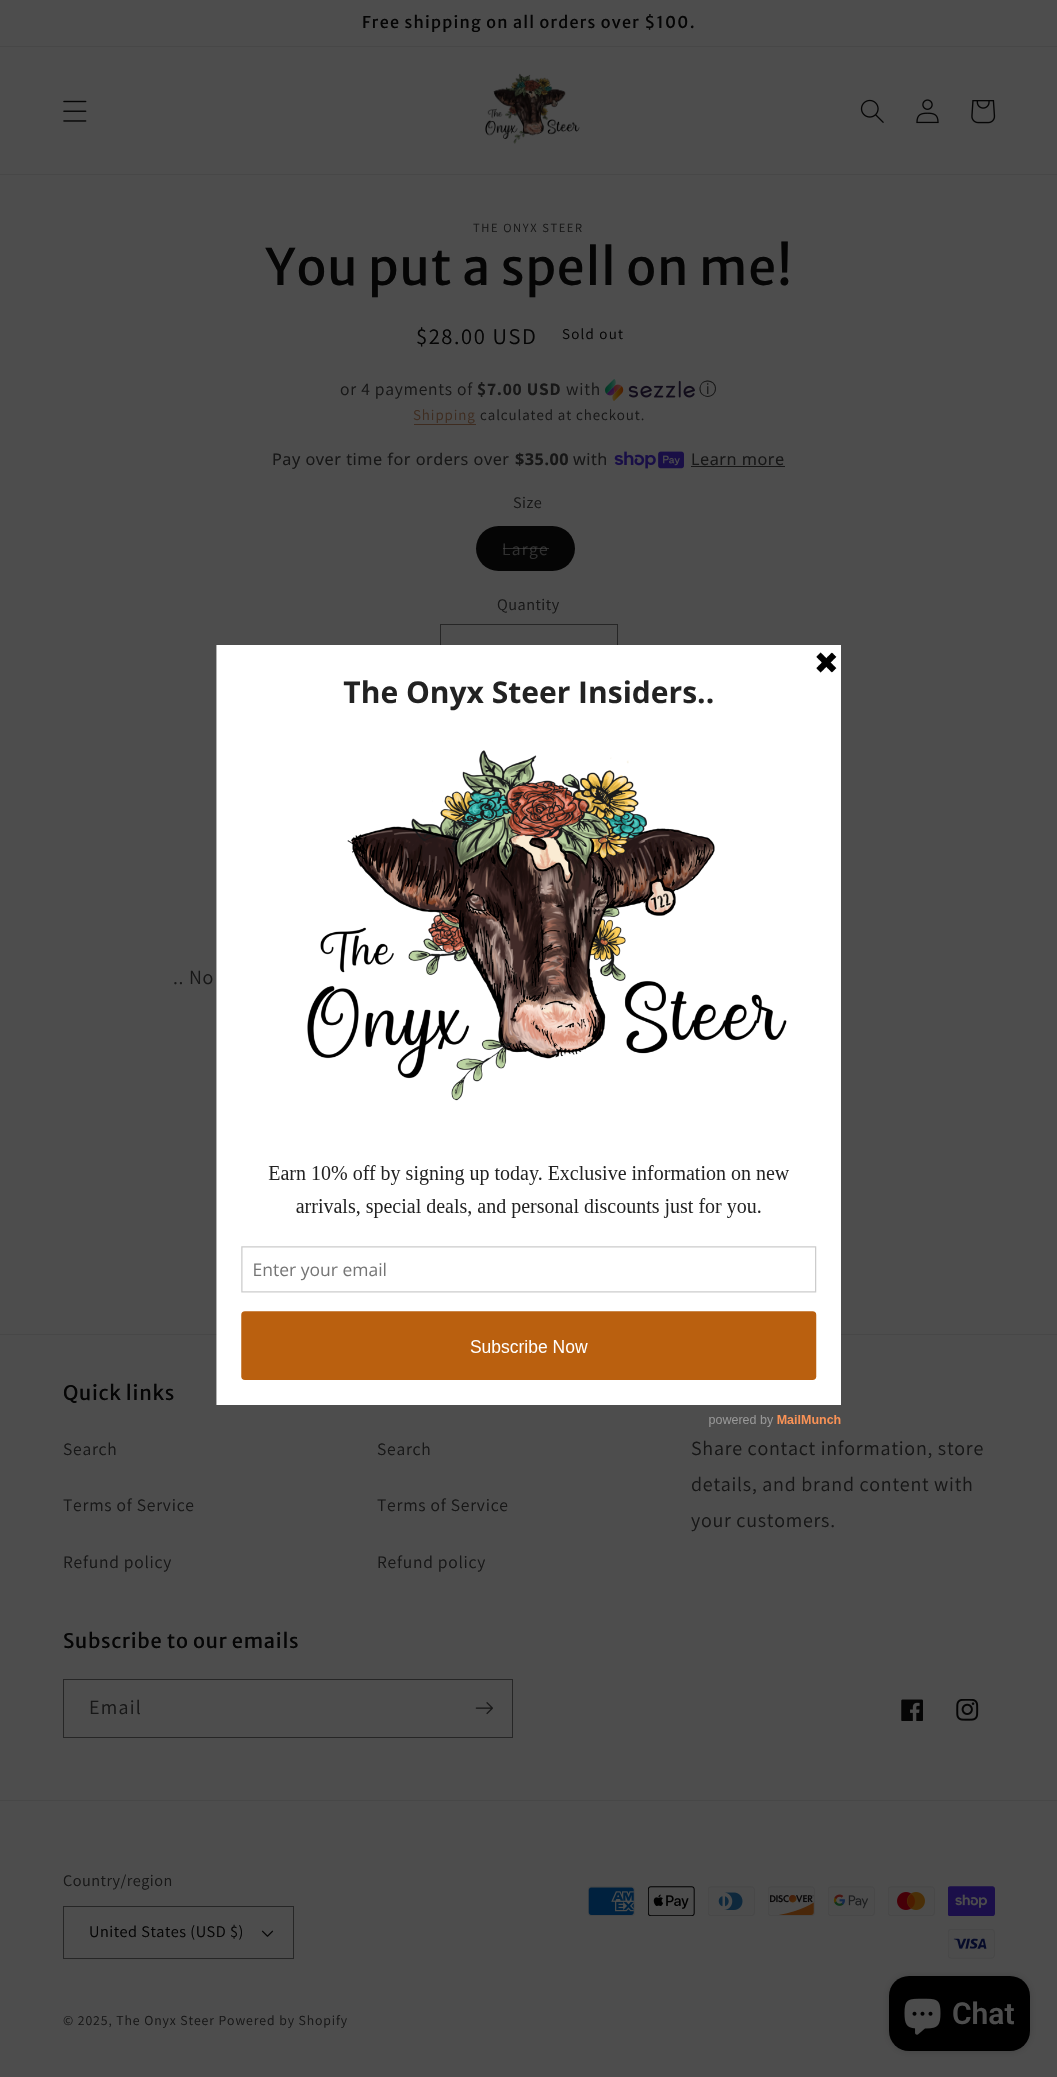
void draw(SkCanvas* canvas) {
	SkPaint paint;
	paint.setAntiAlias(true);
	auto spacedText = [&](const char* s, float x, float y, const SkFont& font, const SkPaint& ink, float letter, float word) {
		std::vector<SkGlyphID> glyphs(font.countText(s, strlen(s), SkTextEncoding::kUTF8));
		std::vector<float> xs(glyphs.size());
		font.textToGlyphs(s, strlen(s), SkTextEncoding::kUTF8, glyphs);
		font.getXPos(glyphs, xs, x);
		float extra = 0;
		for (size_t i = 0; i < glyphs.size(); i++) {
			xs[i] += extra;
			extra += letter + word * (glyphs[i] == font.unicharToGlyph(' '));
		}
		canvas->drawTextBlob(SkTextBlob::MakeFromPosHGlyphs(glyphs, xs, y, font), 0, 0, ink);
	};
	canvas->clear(0xff4d4d4d);
	paint.setColor(0xff474747);
	canvas->drawRect(SkRect::MakeXYWH(0, 46, 1057, 1), paint);
	SkFont f1(fontMgr->matchFamilyStyle("Merriweather Sans", SkFontStyle::Normal()), 16.25);
	f1.setSubpixel(true);
	paint.setColor(0xff050505);
	spacedText("Free shipping on all orders over $100.", 362, 28, f1, paint, 1.25, 0);
	paint.setColor(0xff474747);
	canvas->drawRect(SkRect::MakeXYWH(0, 174, 1057, 1), paint);
	canvas->drawImageRect(SkImages::DeferredFromEncodedData(SkData::MakeFromFileName("img1.png")), SkRect::MakeXYWH(63, 100, 24, 22), SkSamplingOptions());
	canvas->drawImageRect(SkImages::DeferredFromEncodedData(SkData::MakeFromFileName("img2.png")), SkRect::MakeXYWH(485, 73, 95, 71), SkSamplingOptions());
	canvas->drawImageRect(SkImages::DeferredFromEncodedData(SkData::MakeFromFileName("img3.png")), SkRect::MakeXYWH(860, 99, 24, 24), SkSamplingOptions());
	canvas->drawImageRect(SkImages::DeferredFromEncodedData(SkData::MakeFromFileName("img4.png")), SkRect::MakeXYWH(916, 99, 23, 25), SkSamplingOptions());
	canvas->drawImageRect(SkImages::DeferredFromEncodedData(SkData::MakeFromFileName("img5.png")), SkRect::MakeXYWH(971, 100, 25, 24), SkSamplingOptions());
	SkFont f2(fontMgr->matchFamilyStyle("Assistant", SkFontStyle::Normal()), 12.5);
	f2.setSubpixel(true);
	paint.setColor(0xff171717);
	spacedText("THE ONYX STEER", 473, 232, f2, paint, 1.6, 0);
	SkFont f3(fontMgr->matchFamilyStyle("Merriweather Sans", SkFontStyle::Normal()), 50);
	f3.setSubpixel(true);
	paint.setColor(0xff050505);
	spacedText("You put a spell on me!", 265, 285, f3, paint, 0.75, 0);
	SkFont f4(fontMgr->matchFamilyStyle("Assistant", SkFontStyle::Normal()), 22.5);
	f4.setSubpixel(true);
	spacedText("$28.00 USD", 416, 344, f4, paint, 1.6, 0);
	SkFont f5(fontMgr->matchFamilyStyle("Assistant", SkFontStyle::Normal()), 15);
	f5.setSubpixel(true);
	spacedText("Sold out", 562, 339, f5, paint, 1.25, 0);
	SkFont f6(fontMgr->matchFamilyStyle("Assistant", SkFontStyle::Normal()), 17.5);
	f6.setSubpixel(true);
	paint.setColor(0xff171717);
	spacedText("or 4 payments of", 340, 395, f6, paint, 0.75, 0);
	SkFont f7(fontMgr->matchFamilyStyle("Assistant", SkFontStyle::Bold()), 17.5);
	f7.setSubpixel(true);
	spacedText("$7.00 USD", 477, 395, f7, paint, 0.75, 0);
	spacedText("with", 566, 395, f6, paint, 0.75, 0);
	canvas->drawImageRect(SkImages::DeferredFromEncodedData(SkData::MakeFromFileName("img6.png")), SkRect::MakeXYWH(605, 379, 90, 22), SkSamplingOptions());
	SkFont f8(fontMgr->matchFamilyStyle("WenQuanYi Zen Hei", SkFontStyle(500, SkFontStyle::kNormal_Width, SkFontStyle::kUpright_Slant)), 17.5);
	f8.setSubpixel(true);
	spacedText("ⓘ", 699, 395, f8, paint, 0.75, 0);
	paint.setColor(0xff3e2c20);
	spacedText("Shipping", 413, 420, f5, paint, 0.9, 0);
	canvas->drawRect(SkRect::MakeXYWH(414, 424, 62, 1), paint);
	paint.setColor(0xff171717);
	spacedText("calculated at checkout.", 480, 420, f5, paint, 0.9, 0);
	SkFont f9(fontMgr->matchFamilyStyle("Noto Sans", SkFontStyle::Normal()), 16.25);
	f9.setSubpixel(true);
	spacedText("Pay over time for orders over", 272, 465, f9, paint, 0.5, 0);
	SkFont f10(fontMgr->matchFamilyStyle("Noto Sans", SkFontStyle::Bold()), 16.25);
	f10.setSubpixel(true);
	spacedText("$35.00", 515, 465, f10, paint, 0.5, 0);
	spacedText("with", 573, 465, f9, paint, 0.5, 0);
	canvas->drawImageRect(SkImages::DeferredFromEncodedData(SkData::MakeFromFileName("img7.png")), SkRect::MakeXYWH(614, 451, 70, 18), SkSamplingOptions());
	spacedText("Learn more", 691, 465, f9, paint, 0.5, 0);
	canvas->drawRect(SkRect::MakeXYWH(691, 466, 94, 1), paint);
	SkFont f11(fontMgr->matchFamilyStyle("Assistant", SkFontStyle::Normal()), 16.25);
	f11.setSubpixel(true);
	spacedText("Size", 513, 508, f11, paint, 0.5, 0);
	paint.setColor(0xff050505);
	canvas->drawRoundRect(SkRect::MakeXYWH(476, 526, 99, 45), 22.5, 22.5, paint);
	paint.setColor(0xff303030);
	spacedText("Large", 502, 555, f6, paint, 1.25, 0);
	paint.setColor(0x994d4d4d);
	canvas->drawRect(SkRect::MakeXYWH(503, 548, 46, 1), paint);
	paint.setColor(0xff171717);
	spacedText("Quantity", 497, 610, f11, paint, 0.5, 0);
	paint.setStroke(true);
	paint.setStrokeWidth(1);
	paint.setColor(0xff262626);
	canvas->drawRect(SkRect::MakeXYWH(440.5, 624.5, 177, 58), paint);
	SkFont f12(fontMgr->matchFamilyStyle("Assistant", SkFontStyle::Normal()), 20);
	f12.setSubpixel(true);
	paint.setStroke(false);
	paint.setColor(0xff171717);
	spacedText(".. No", 173, 984, f12, paint, 0.75, 0);
	paint.setColor(0xff474747);
	canvas->drawRect(SkRect::MakeXYWH(0, 1334, 1057, 1), paint);
	canvas->drawImageRect(SkImages::DeferredFromEncodedData(SkData::MakeFromFileName("img8.png")), SkRect::MakeXYWH(216, 645, 625, 782), SkSamplingOptions());
	SkFont f13(fontMgr->matchFamilyStyle("Merriweather Sans", SkFontStyle::Normal()), 20);
	f13.setSubpixel(true);
	paint.setColor(0xff050505);
	spacedText("Quick links", 63, 1400, f13, paint, 0.75, 0);
	paint.setColor(0xff171717);
	spacedText("Search", 63, 1455, f6, paint, 0.75, 0);
	spacedText("Terms of Service", 63, 1511, f6, paint, 0.75, 0);
	spacedText("Refund policy", 63, 1568, f6, paint, 0.75, 0);
	spacedText("Search", 377, 1455, f6, paint, 0.75, 0);
	spacedText("Terms of Service", 377, 1511, f6, paint, 0.75, 0);
	spacedText("Refund policy", 377, 1568, f6, paint, 0.75, 0);
	spacedText("Share contact information, store", 691, 1455, f12, paint, 0.75, 0);
	spacedText("details, and brand content with", 691, 1491, f12, paint, 0.75, 0);
	spacedText("your customers.", 691, 1527, f12, paint, 0.75, 0);
	paint.setColor(0xff050505);
	spacedText("Subscribe to our emails", 63, 1648, f13, paint, 0.75, 0);
	paint.setStroke(true);
	paint.setColor(0xff262626);
	canvas->drawRect(SkRect::MakeXYWH(63.5, 1679.5, 449, 58), paint);
	paint.setStroke(false);
	paint.setColor(0xff171717);
	spacedText("Email", 89, 1714, f12, paint, 1.25, 0);
	canvas->drawImageRect(SkImages::DeferredFromEncodedData(SkData::MakeFromFileName("img9.png")), SkRect::MakeXYWH(475, 1702, 18, 13), SkSamplingOptions());
	canvas->drawImageRect(SkImages::DeferredFromEncodedData(SkData::MakeFromFileName("img10.png")), SkRect::MakeXYWH(901, 1699, 22, 22), SkSamplingOptions());
	canvas->drawImageRect(SkImages::DeferredFromEncodedData(SkData::MakeFromFileName("img11.png")), SkRect::MakeXYWH(956, 1699, 23, 22), SkSamplingOptions());
	paint.setColor(0xff474747);
	canvas->drawRect(SkRect::MakeXYWH(0, 1800, 1057, 1), paint);
	paint.setColor(0xff171717);
	spacedText("Country/region", 63, 1886, f11, paint, 0.5, 0);
	canvas->drawImageRect(SkImages::DeferredFromEncodedData(SkData::MakeFromFileName("img12.png")), SkRect::MakeXYWH(261, 1930, 13, 7), SkSamplingOptions());
	paint.setStroke(true);
	paint.setColor(0xff262626);
	canvas->drawRect(SkRect::MakeXYWH(63.5, 1906.5, 230, 52), paint);
	paint.setStroke(false);
	paint.setColor(0xff050505);
	spacedText("United States (USD $)", 89, 1937, f11, paint, 0.5, 0);
	canvas->drawImageRect(SkImages::DeferredFromEncodedData(SkData::MakeFromFileName("img13.png")), SkRect::MakeXYWH(588, 1886, 47, 30), SkSamplingOptions());
	canvas->drawImageRect(SkImages::DeferredFromEncodedData(SkData::MakeFromFileName("img14.png")), SkRect::MakeXYWH(648, 1886, 47, 30), SkSamplingOptions());
	canvas->drawImageRect(SkImages::DeferredFromEncodedData(SkData::MakeFromFileName("img15.png")), SkRect::MakeXYWH(708, 1886, 47, 30), SkSamplingOptions());
	canvas->drawImageRect(SkImages::DeferredFromEncodedData(SkData::MakeFromFileName("img16.png")), SkRect::MakeXYWH(768, 1886, 47, 30), SkSamplingOptions());
	canvas->drawImageRect(SkImages::DeferredFromEncodedData(SkData::MakeFromFileName("img17.png")), SkRect::MakeXYWH(828, 1886, 47, 30), SkSamplingOptions());
	canvas->drawImageRect(SkImages::DeferredFromEncodedData(SkData::MakeFromFileName("img18.png")), SkRect::MakeXYWH(888, 1886, 47, 30), SkSamplingOptions());
	canvas->drawImageRect(SkImages::DeferredFromEncodedData(SkData::MakeFromFileName("img19.png")), SkRect::MakeXYWH(948, 1886, 47, 30), SkSamplingOptions());
	canvas->drawImageRect(SkImages::DeferredFromEncodedData(SkData::MakeFromFileName("img20.png")), SkRect::MakeXYWH(948, 1929, 47, 30), SkSamplingOptions());
	SkFont f14(fontMgr->matchFamilyStyle("Assistant", SkFontStyle::Normal()), 13.75);
	f14.setSubpixel(true);
	paint.setColor(0xff171717);
	spacedText("© 2025, The Onyx Steer Powered by Shopify", 63, 2025, f14, paint, 0.9, 0);
	paint.setColor(0x26000000);
	paint.setMaskFilter(SkMaskFilter::MakeBlur(kNormal_SkBlurStyle, 3));
	canvas->drawRoundRect(SkRect::MakeXYWH(889, 1976, 141, 75), 20, 20, paint);
	paint.setMaskFilter(nullptr);
	paint.setColor(0xff000000);
	canvas->drawRoundRect(SkRect::MakeXYWH(889, 1976, 141, 75), 20, 20, paint);
	canvas->drawImageRect(SkImages::DeferredFromEncodedData(SkData::MakeFromFileName("img21.png")), SkRect::MakeXYWH(904, 1998, 37, 37), SkSamplingOptions());
	SkFont f15(fontMgr->matchFamilyStyle("Roboto", SkFontStyle(600, SkFontStyle::kNormal_Width, SkFontStyle::kUpright_Slant)), 30);
	f15.setSubpixel(true);
	paint.setColor(0xff4d4d4d);
	canvas->drawString("Chat", 952, 2024, f15, paint);
}
